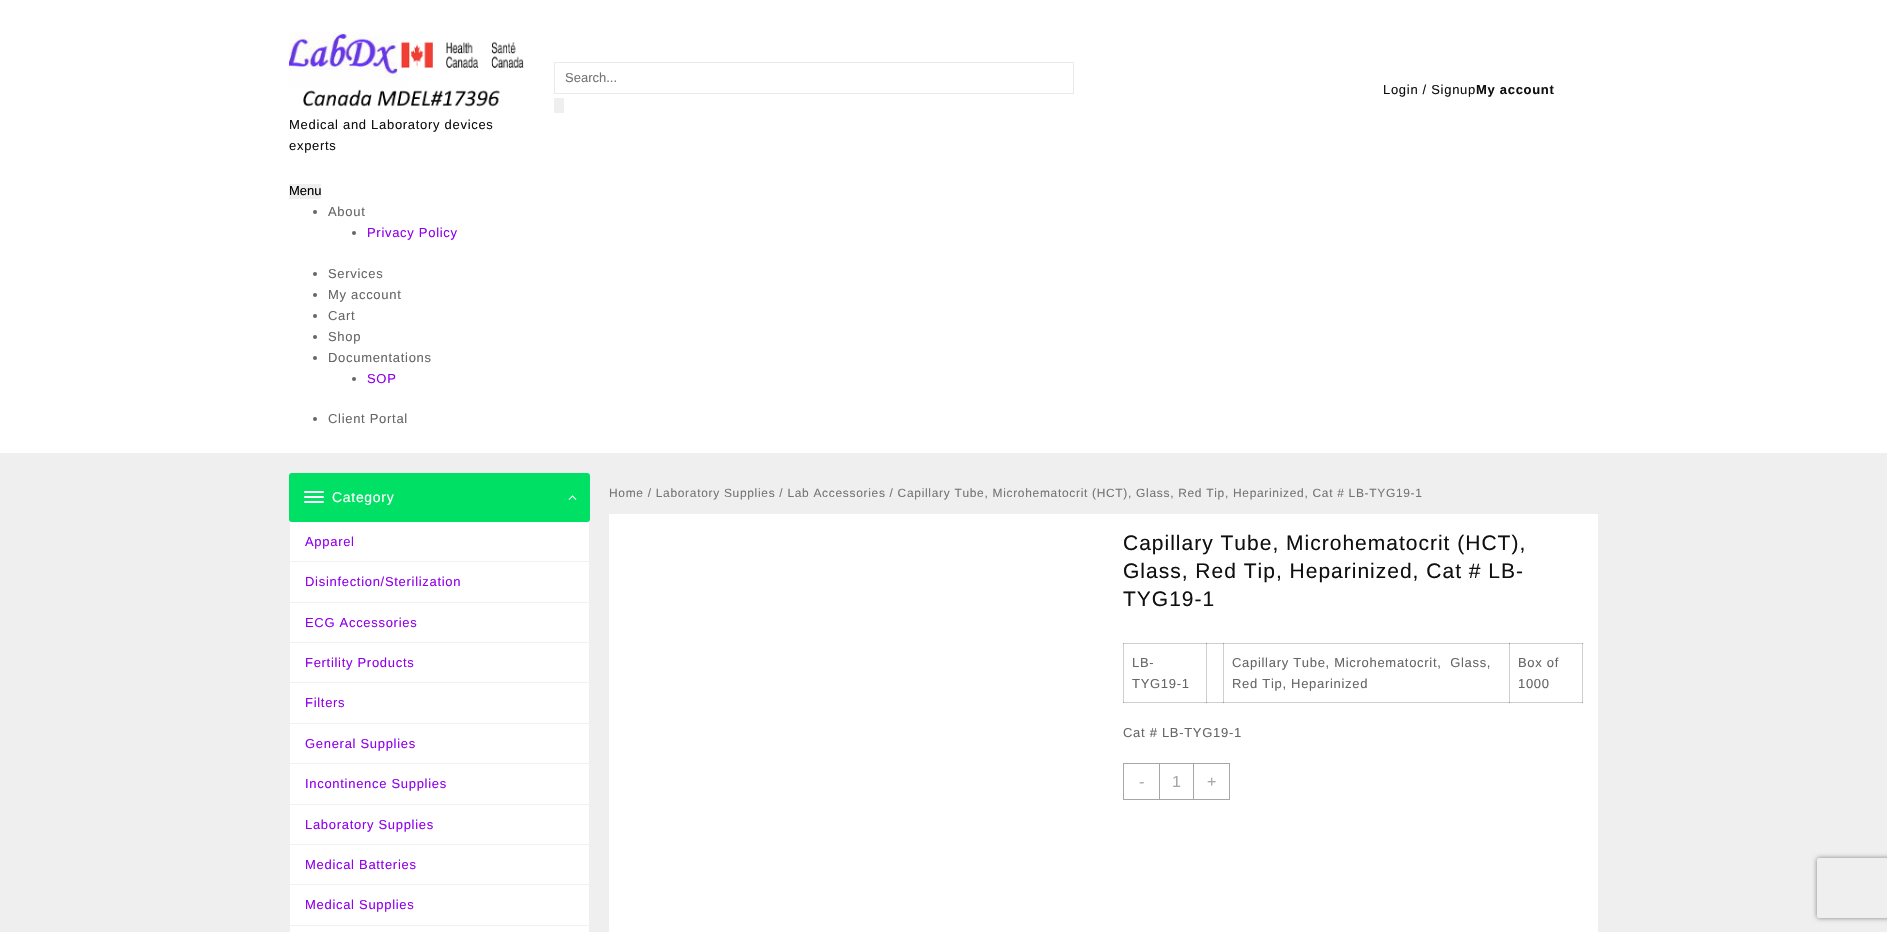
void draw(SkCanvas* canvas) {
	SkPaint paint;
	paint.setAntiAlias(true);
	auto spacedText = [&](const char* s, float x, float y, const SkFont& font, const SkPaint& ink, float letter, float word) {
		std::vector<SkGlyphID> glyphs(font.countText(s, strlen(s), SkTextEncoding::kUTF8));
		std::vector<float> xs(glyphs.size());
		font.textToGlyphs(s, strlen(s), SkTextEncoding::kUTF8, glyphs);
		font.getXPos(glyphs, xs, x);
		float extra = 0;
		for (size_t i = 0; i < glyphs.size(); i++) {
			xs[i] += extra;
			extra += letter + word * (glyphs[i] == font.unicharToGlyph(' '));
		}
		canvas->drawTextBlob(SkTextBlob::MakeFromPosHGlyphs(glyphs, xs, y, font), 0, 0, ink);
	};
	auto svgPath = [&](const char* data, bool evenOdd = false) {
		SkPath result = *SkParsePath::FromSVGString(data);
		if (evenOdd) result.setFillType(SkPathFillType::kEvenOdd);
		return result;
	};
	canvas->clear(0xffefefef);
	paint.setColor(0xffffffff);
	canvas->drawRect(SkRect::MakeXYWH(0, 0, 1887, 453), paint);
	paint.setStroke(true);
	paint.setStrokeWidth(1);
	paint.setColor(0xffeaeaea);
	canvas->drawRect(SkRect::MakeXYWH(554.5, 62.5, 519, 31), paint);
	SkFont f1(fontMgr->matchFamilyStyle("Liberation Sans", SkFontStyle::Normal()), 13);
	f1.setSubpixel(true);
	paint.setStroke(false);
	paint.setColor(0xff757575);
	canvas->drawString("Search...", 565, 82, f1, paint);
	paint.setColor(0xffefefef);
	canvas->drawRect(SkRect::MakeXYWH(554, 98, 10, 15), paint);
	paint.setColor(0xff0f1011);
	spacedText("Login / Signup", 1383, 94, f1, paint, 0.7, 0);
	SkFont f2(fontMgr->matchFamilyStyle("Liberation Sans", SkFontStyle::Bold()), 13);
	f2.setSubpixel(true);
	spacedText("My account", 1476, 94, f2, paint, 0.7, 0);
	canvas->drawImageRect(SkImages::DeferredFromEncodedData(SkData::MakeFromFileName("img1.png")), SkRect::MakeXYWH(289, 32, 235, 75), SkSamplingOptions());
	spacedText("Medical and Laboratory devices", 289, 129, f1, paint, 0.7, 0);
	spacedText("experts", 289, 150, f1, paint, 0.7, 0);
	paint.setColor(0xffefefef);
	canvas->drawRect(SkRect::MakeXYWH(289, 184, 32, 15), paint);
	paint.setColor(0xff000000);
	canvas->drawString("Menu", 289, 195, f1, paint);
	paint.setColor(0xff666666);
	canvas->drawCircle(315, 212, 2, paint);
	spacedText("About", 328, 216, f1, paint, 0.7, 0);
	canvas->drawCircle(354, 233, 2, paint);
	paint.setColor(0xff9200ed);
	spacedText("Privacy Policy", 367, 237, f1, paint, 0.7, 0);
	paint.setColor(0xff666666);
	canvas->drawCircle(315, 274, 2, paint);
	spacedText("Services", 328, 278, f1, paint, 0.7, 0);
	canvas->drawCircle(315, 295, 2, paint);
	spacedText("My account", 328, 299, f1, paint, 0.7, 0);
	canvas->drawCircle(315, 316, 2, paint);
	spacedText("Cart", 328, 320, f1, paint, 0.7, 0);
	canvas->drawCircle(315, 337, 2, paint);
	spacedText("Shop", 328, 341, f1, paint, 0.7, 0);
	canvas->drawCircle(315, 358, 2, paint);
	spacedText("Documentations", 328, 362, f1, paint, 0.7, 0);
	canvas->drawCircle(354, 379, 2, paint);
	paint.setColor(0xff9200ed);
	spacedText("SOP", 367, 383, f1, paint, 0.7, 0);
	paint.setColor(0xff666666);
	canvas->drawCircle(315, 419, 2, paint);
	spacedText("Client Portal", 328, 423, f1, paint, 0.7, 0);
	paint.setColor(0xff00e064);
	canvas->drawRoundRect(SkRect::MakeXYWH(289, 473, 301, 49), 3, 3, paint);
	paint.setColor(0xffffffff);
	canvas->drawRoundRect(SkRect::MakeXYWH(304, 491, 20, 2), 1, 1, paint);
	canvas->drawRoundRect(SkRect::MakeXYWH(304, 496, 20, 2), 1, 1, paint);
	canvas->drawRoundRect(SkRect::MakeXYWH(304, 501, 20, 2), 1, 1, paint);
	SkFont f3(fontMgr->matchFamilyStyle("Liberation Sans", SkFontStyle::Normal()), 14);
	f3.setSubpixel(true);
	spacedText("Category", 332, 502, f3, paint, 0.7, 0);
	canvas->drawImageRect(SkImages::DeferredFromEncodedData(SkData::MakeFromFileName("img2.png")), SkRect::MakeXYWH(568, 495, 9, 5), SkSamplingOptions());
	canvas->drawRect(SkRect::MakeXYWH(290, 522, 299, 410), paint);
	paint.setColor(0xfff1f1f1);
	canvas->drawRect(SkRect::MakeXYWH(290, 561, 299, 1), paint);
	paint.setColor(0xff9200ed);
	spacedText("Apparel", 305, 546, f1, paint, 0.7, 0);
	paint.setColor(0xfff1f1f1);
	canvas->drawRect(SkRect::MakeXYWH(290, 602, 299, 1), paint);
	paint.setColor(0xff9200ed);
	spacedText("Disinfection/Sterilization", 305, 586, f1, paint, 0.7, 0);
	paint.setColor(0xfff1f1f1);
	canvas->drawRect(SkRect::MakeXYWH(290, 642, 299, 1), paint);
	paint.setColor(0xff9200ed);
	spacedText("ECG Accessories", 305, 627, f1, paint, 0.7, 0);
	paint.setColor(0xfff1f1f1);
	canvas->drawRect(SkRect::MakeXYWH(290, 682, 299, 1), paint);
	paint.setColor(0xff9200ed);
	spacedText("Fertility Products", 305, 667, f1, paint, 0.7, 0);
	paint.setColor(0xfff1f1f1);
	canvas->drawRect(SkRect::MakeXYWH(290, 723, 299, 1), paint);
	paint.setColor(0xff9200ed);
	spacedText("Filters", 305, 707, f1, paint, 0.7, 0);
	paint.setColor(0xfff1f1f1);
	canvas->drawRect(SkRect::MakeXYWH(290, 763, 299, 1), paint);
	paint.setColor(0xff9200ed);
	spacedText("General Supplies", 305, 748, f1, paint, 0.7, 0);
	paint.setColor(0xfff1f1f1);
	canvas->drawRect(SkRect::MakeXYWH(290, 804, 299, 1), paint);
	paint.setColor(0xff9200ed);
	spacedText("Incontinence Supplies", 305, 788, f1, paint, 0.7, 0);
	paint.setColor(0xfff1f1f1);
	canvas->drawRect(SkRect::MakeXYWH(290, 844, 299, 1), paint);
	paint.setColor(0xff9200ed);
	spacedText("Laboratory Supplies", 305, 829, f1, paint, 0.7, 0);
	paint.setColor(0xfff1f1f1);
	canvas->drawRect(SkRect::MakeXYWH(290, 884, 299, 1), paint);
	paint.setColor(0xff9200ed);
	spacedText("Medical Batteries", 305, 869, f1, paint, 0.7, 0);
	paint.setColor(0xfff1f1f1);
	canvas->drawRect(SkRect::MakeXYWH(290, 925, 299, 1), paint);
	paint.setColor(0xff9200ed);
	spacedText("Medical Supplies", 305, 909, f1, paint, 0.7, 0);
	SkFont f4(fontMgr->matchFamilyStyle("Liberation Sans", SkFontStyle::Normal()), 11.95);
	f4.setSubpixel(true);
	paint.setColor(0xff757575);
	spacedText("Home / Laboratory Supplies / Lab Accessories / Capillary Tube, Microhematocrit (HCT), Glass, Red Tip, Heparinized, Cat # LB-TYG19-1", 609, 497, f4, paint, 0.7, 0);
	paint.setColor(0xffffffff);
	canvas->drawRect(SkRect::MakeXYWH(609, 514, 989, 418), paint);
	paint.setColor(0xffcfcfcf);
	canvas->drawRect(SkRect::MakeXYWH(1206, 643, 1, 60), paint);
	canvas->drawRect(SkRect::MakeXYWH(1223, 643, 1, 60), paint);
	canvas->drawRect(SkRect::MakeXYWH(1509, 643, 1, 60), paint);
	canvas->drawRect(SkRect::MakeXYWH(1123, 643, 1, 60), paint);
	canvas->drawRect(SkRect::MakeXYWH(1123, 702, 460, 1), paint);
	paint.setColor(0xff969696);
	canvas->drawRect(SkRect::MakeXYWH(1206, 702, 1, 1), paint);
	canvas->drawRect(SkRect::MakeXYWH(1223, 702, 1, 1), paint);
	canvas->drawRect(SkRect::MakeXYWH(1509, 702, 1, 1), paint);
	paint.setColor(0xffa7a7a7);
	canvas->drawRect(SkRect::MakeXYWH(1123, 702, 1, 1), paint);
	paint.setColor(0xffcfcfcf);
	canvas->drawRect(SkRect::MakeXYWH(1582, 643, 1, 60), paint);
	paint.setColor(0xffa7a7a7);
	canvas->drawRect(SkRect::MakeXYWH(1582, 702, 1, 1), paint);
	SkFont f5(fontMgr->matchFamilyStyle("Liberation Sans", SkFontStyle::Normal()), 21);
	f5.setSubpixel(true);
	paint.setColor(0xff0f1011);
	spacedText("Capillary Tube, Microhematocrit (HCT),", 1123, 550, f5, paint, 1, 0);
	spacedText("Glass, Red Tip, Heparinized, Cat # LB-", 1123, 578, f5, paint, 1, 0);
	spacedText("TYG19-1", 1123, 606, f5, paint, 1, 0);
	paint.setColor(0xffcfcfcf);
	canvas->drawRect(SkRect::MakeXYWH(1123, 643, 460, 1), paint);
	paint.setColor(0xff969696);
	canvas->drawRect(SkRect::MakeXYWH(1206, 643, 1, 1), paint);
	canvas->drawRect(SkRect::MakeXYWH(1223, 643, 1, 1), paint);
	canvas->drawRect(SkRect::MakeXYWH(1509, 643, 1, 1), paint);
	paint.setColor(0xffa7a7a7);
	canvas->drawRect(SkRect::MakeXYWH(1123, 643, 1, 1), paint);
	canvas->drawRect(SkRect::MakeXYWH(1582, 643, 1, 1), paint);
	paint.setColor(0xff666666);
	spacedText("LB-", 1132, 667, f1, paint, 0.7, 0);
	spacedText("TYG19-1", 1132, 688, f1, paint, 0.7, 0);
	spacedText("Capillary Tube, Microhematocrit,  Glass,", 1232, 667, f1, paint, 0.7, 0);
	spacedText("Red Tip, Heparinized", 1232, 688, f1, paint, 0.7, 0);
	spacedText("Box of", 1518, 667, f1, paint, 0.7, 0);
	spacedText("1000", 1518, 688, f1, paint, 0.7, 0);
	spacedText("Cat # LB-TYG19-1", 1123, 737, f1, paint, 0.7, 0);
	paint.setStroke(true);
	paint.setColor(0xffa7a7a7);
	canvas->drawRect(SkRect::MakeXYWH(1123.5, 763.5, 106, 36), paint);
	SkFont f6(fontMgr->matchFamilyStyle("Liberation Sans", SkFontStyle::Normal()), 16);
	f6.setSubpixel(true);
	paint.setStroke(false);
	canvas->drawString("-", 1139, 787, f6, paint);
	canvas->drawRect(SkRect::MakeXYWH(1193, 764, 1, 35), paint);
	canvas->drawRect(SkRect::MakeXYWH(1159, 764, 1, 35), paint);
	canvas->drawString("1", 1172, 787, f6, paint);
	canvas->drawString("+", 1207, 787, f6, paint);
	canvas->save();
	canvas->clipPath(svgPath("M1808 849H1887V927H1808ZM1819 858H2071C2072 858 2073 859 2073 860V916C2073 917 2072 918 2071 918H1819C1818 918 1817 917 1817 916V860C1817 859 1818 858 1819 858Z", true), true);
	paint.setColor(0xff808080);
	paint.setMaskFilter(SkMaskFilter::MakeBlur(kNormal_SkBlurStyle, 2.5));
	canvas->drawRoundRect(SkRect::MakeXYWH(1817, 858, 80, 60), 2, 2, paint);
	paint.setMaskFilter(nullptr);
	canvas->restore();
}
